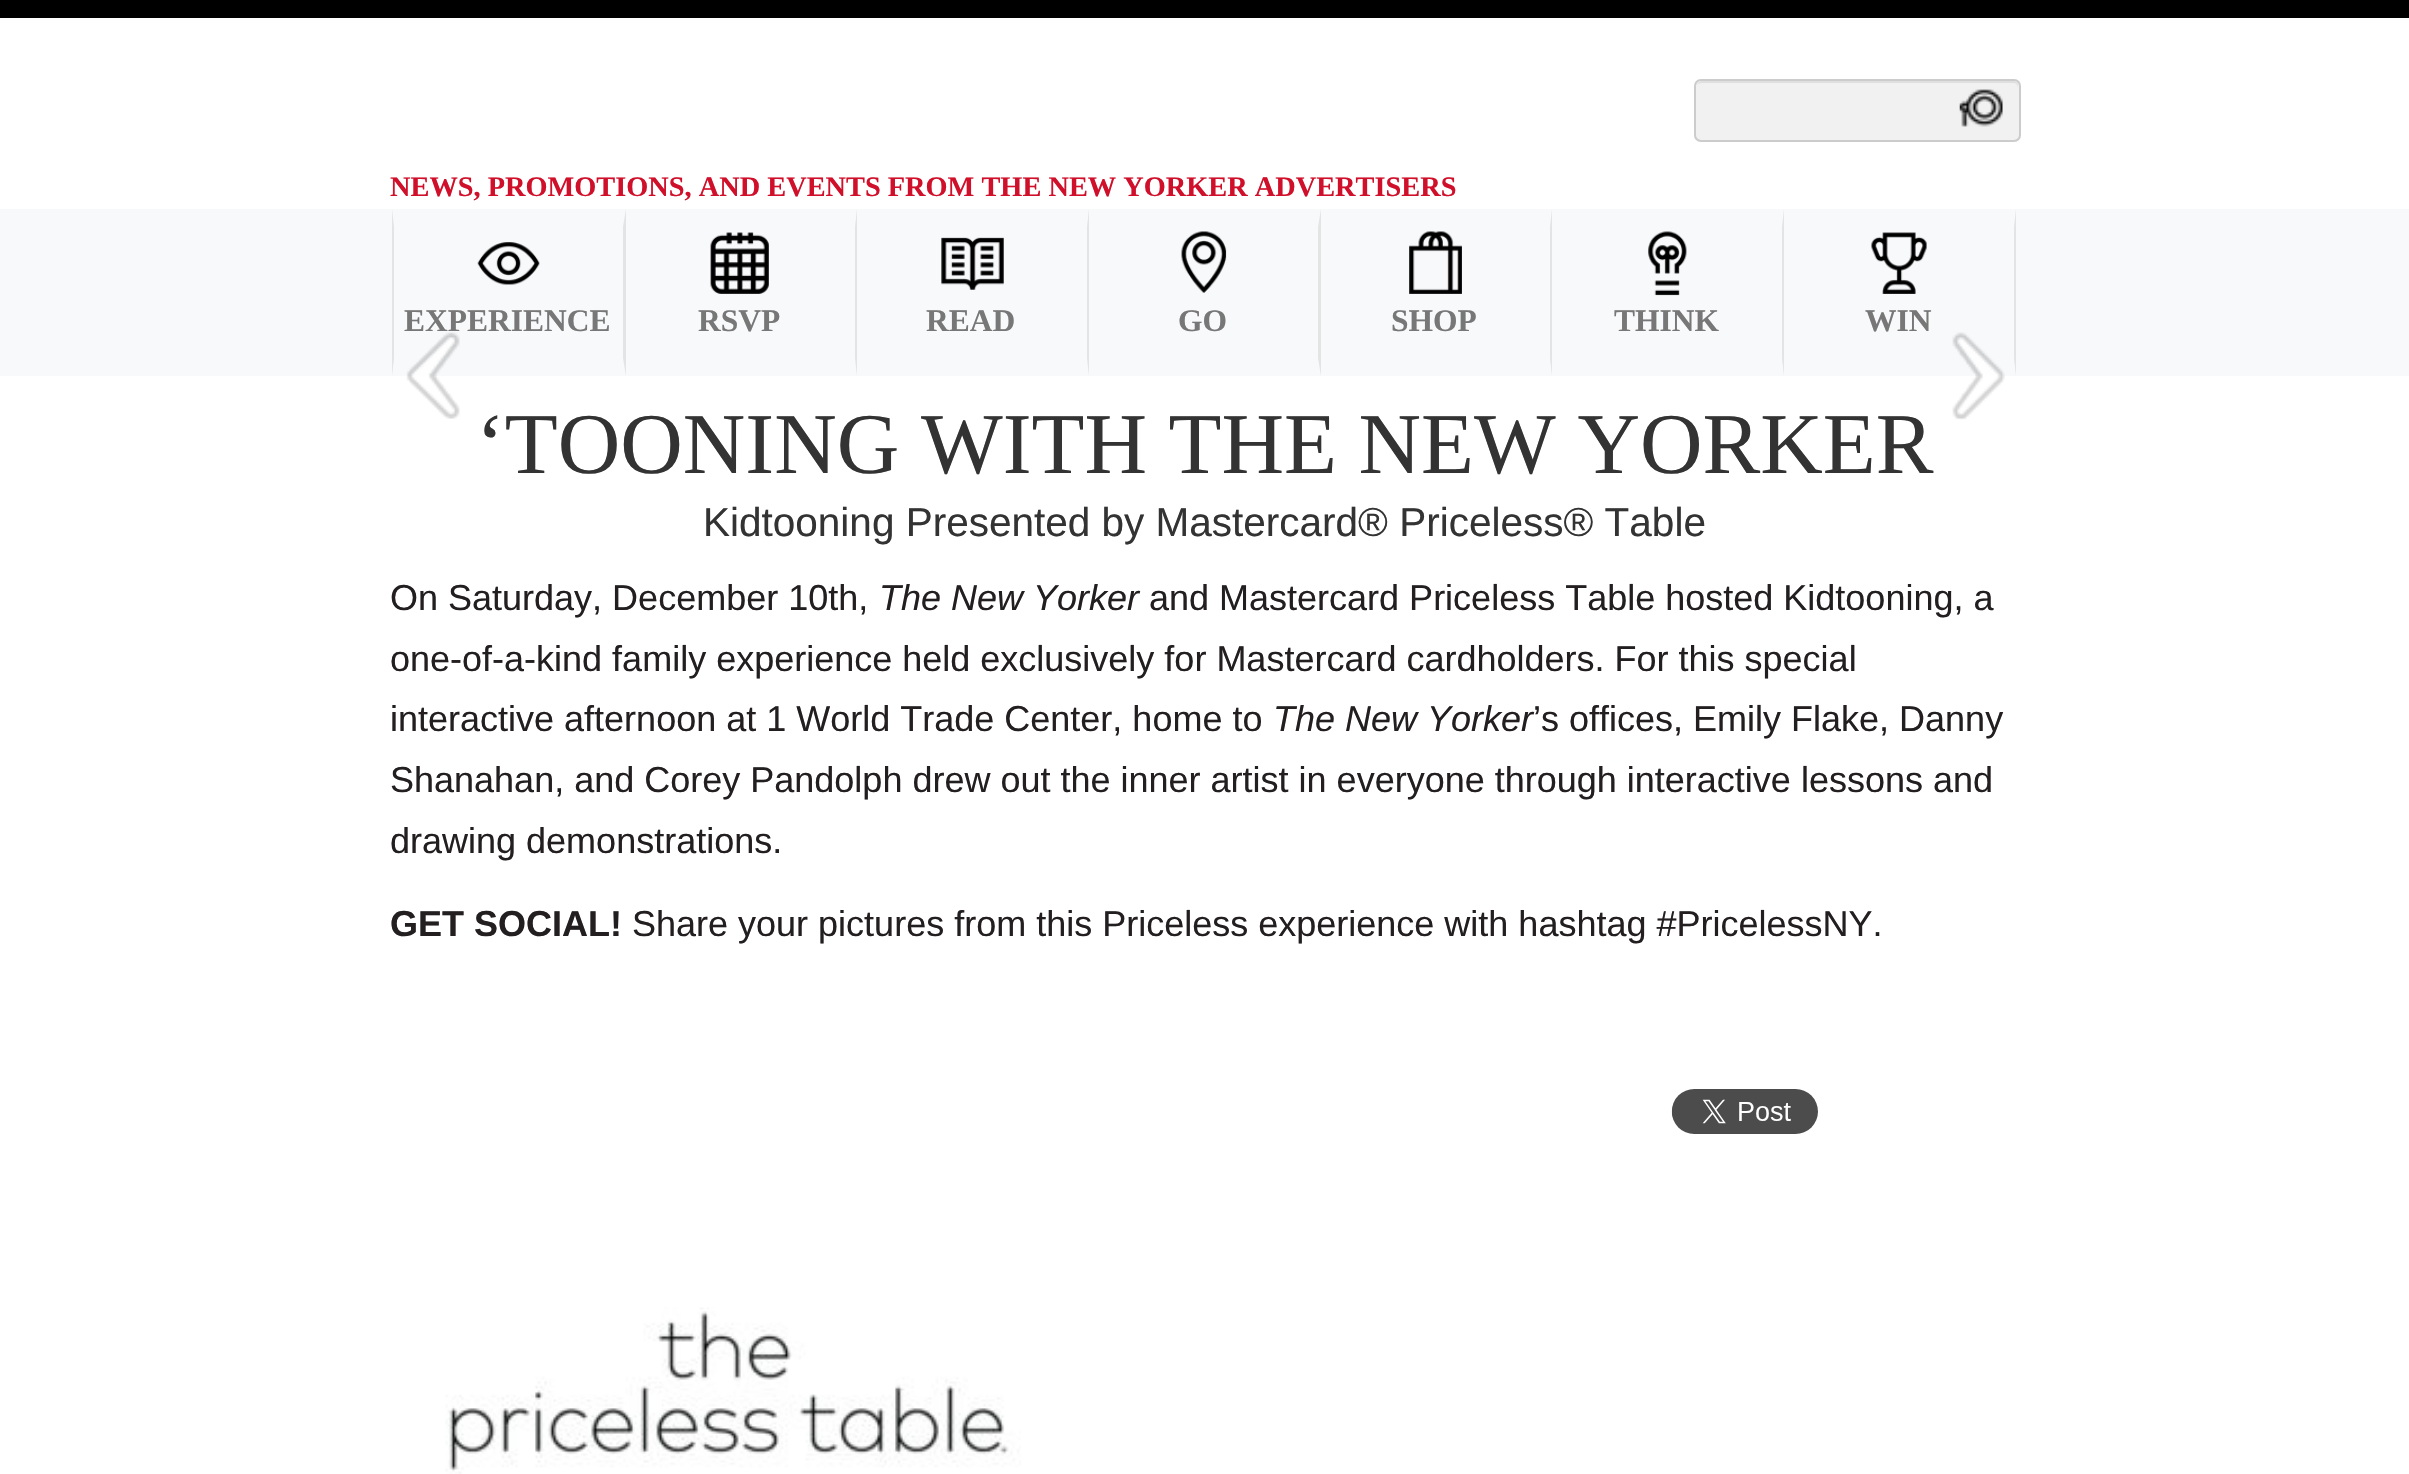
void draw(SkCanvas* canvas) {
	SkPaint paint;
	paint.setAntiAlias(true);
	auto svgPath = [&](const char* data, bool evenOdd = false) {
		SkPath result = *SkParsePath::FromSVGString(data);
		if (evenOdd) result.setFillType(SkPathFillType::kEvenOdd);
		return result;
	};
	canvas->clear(0xffffffff);
	paint.setColor(0xff000000);
	canvas->drawRect(SkRect::MakeXYWH(0, 0, 2409, 18), paint);
	paint.setColor(0xfff1f1f1);
	canvas->drawRoundRect(SkRect::MakeXYWH(1694, 79, 327, 63), 7, 7, paint);
	canvas->drawImageRect(SkImages::DeferredFromEncodedData(SkData::MakeFromFileName("img1.png")), SkRect::MakeXYWH(1959, 89, 44, 38), SkSamplingOptions());
	paint.setColor(0xffdfdfdf);
	canvas->drawPath(svgPath("M1701 83H2014C2016 83 2018 85 2018 88V86C2018 83 2016 81 2013 81H1702C1700 81 1698 83 1697 85C1698 84 1700 83 1701 83Z"), paint);
	paint.setStroke(true);
	paint.setStrokeWidth(2);
	paint.setColor(0xffcccccc);
	canvas->drawRoundRect(SkRect::MakeXYWH(1695, 80, 325, 61), 6, 6, paint);
	SkFont f1(fontMgr->matchFamilyStyle("Liberation Serif", SkFontStyle::Bold()), 28.35);
	f1.setSubpixel(true);
	paint.setStroke(false);
	paint.setColor(0xffd0102b);
	canvas->drawString("NEWS, PROMOTIONS, AND EVENTS FROM THE NEW YORKER ADVERTISERS", 390, 196, f1, paint);
	paint.setColor(0xfff7f9fb);
	canvas->drawRect(SkRect::MakeXYWH(0, 209, 2409, 167), paint);
	paint.setColor(0xffe4e4e4);
	canvas->drawPath(svgPath("M626 209V376L623 358V227Z"), paint);
	canvas->drawPath(svgPath("M392 376V209L394 227V358Z"), paint);
	canvas->drawImageRect(SkImages::DeferredFromEncodedData(SkData::MakeFromFileName("img2.png")), SkRect::MakeXYWH(477, 242, 63, 43), SkSamplingOptions());
	SkFont f2(fontMgr->matchFamilyStyle("Liberation Serif", SkFontStyle::Bold()), 31.5);
	f2.setSubpixel(true);
	paint.setColor(0xff777777);
	canvas->drawString("EXPERIENCE", 404, 331, f2, paint);
	paint.setColor(0xffe4e4e4);
	canvas->drawPath(svgPath("M857 209V376L855 358V227Z"), paint);
	canvas->drawImageRect(SkImages::DeferredFromEncodedData(SkData::MakeFromFileName("img3.png")), SkRect::MakeXYWH(710, 232, 59, 62), SkSamplingOptions());
	paint.setColor(0xff777777);
	canvas->drawString("RSVP", 698, 331, f2, paint);
	paint.setColor(0xffe4e4e4);
	canvas->drawPath(svgPath("M1089 209V376L1087 358V227Z"), paint);
	canvas->drawImageRect(SkImages::DeferredFromEncodedData(SkData::MakeFromFileName("img4.png")), SkRect::MakeXYWH(941, 237, 63, 53), SkSamplingOptions());
	paint.setColor(0xff777777);
	canvas->drawString("READ", 926, 331, f2, paint);
	paint.setColor(0xffe4e4e4);
	canvas->drawPath(svgPath("M1321 209V376L1318 358V227Z"), paint);
	canvas->drawImageRect(SkImages::DeferredFromEncodedData(SkData::MakeFromFileName("img5.png")), SkRect::MakeXYWH(1181, 231, 46, 62), SkSamplingOptions());
	paint.setColor(0xff777777);
	canvas->drawString("GO", 1178, 331, f2, paint);
	paint.setColor(0xffe4e4e4);
	canvas->drawPath(svgPath("M1552 209V376L1550 358V227Z"), paint);
	canvas->drawImageRect(SkImages::DeferredFromEncodedData(SkData::MakeFromFileName("img6.png")), SkRect::MakeXYWH(1409, 231, 53, 63), SkSamplingOptions());
	paint.setColor(0xff777777);
	canvas->drawString("SHOP", 1391, 331, f2, paint);
	paint.setColor(0xffe4e4e4);
	canvas->drawPath(svgPath("M1784 209V376L1782 358V227Z"), paint);
	canvas->drawImageRect(SkImages::DeferredFromEncodedData(SkData::MakeFromFileName("img7.png")), SkRect::MakeXYWH(1648, 231, 39, 65), SkSamplingOptions());
	paint.setColor(0xff777777);
	canvas->drawString("THINK", 1614, 331, f2, paint);
	paint.setColor(0xffe4e4e4);
	canvas->drawPath(svgPath("M2016 209V376L2014 358V227Z"), paint);
	canvas->drawImageRect(SkImages::DeferredFromEncodedData(SkData::MakeFromFileName("img8.png")), SkRect::MakeXYWH(1871, 232, 56, 62), SkSamplingOptions());
	paint.setColor(0xff777777);
	canvas->drawString("WIN", 1865, 331, f2, paint);
	canvas->drawImageRect(SkImages::DeferredFromEncodedData(SkData::MakeFromFileName("img9.png")), SkRect::MakeXYWH(406, 332, 54, 87), SkSamplingOptions());
	canvas->drawImageRect(SkImages::DeferredFromEncodedData(SkData::MakeFromFileName("img10.png")), SkRect::MakeXYWH(1952, 332, 53, 88), SkSamplingOptions());
	SkFont f3(fontMgr->matchFamilyStyle("Liberation Serif", SkFontStyle::Normal()), 86.6);
	f3.setSubpixel(true);
	paint.setColor(0xff333333);
	canvas->drawString("‘TOONING WITH THE NEW YORKER", 476, 473, f3, paint);
	SkFont f4(fontMgr->matchFamilyStyle("Liberation Sans", SkFontStyle::Normal()), 40.5);
	f4.setSubpixel(true);
	canvas->drawString("Kidtooning Presented by Mastercard® Priceless® Table", 703, 536, f4, paint);
	SkFont f5(fontMgr->matchFamilyStyle("Liberation Sans", SkFontStyle::Normal()), 36);
	f5.setSubpixel(true);
	paint.setColor(0xff231f20);
	canvas->drawString("On Saturday, December 10th,", 390, 610, f5, paint);
	SkFont f6(fontMgr->matchFamilyStyle("Liberation Sans", SkFontStyle::Italic()), 36);
	f6.setSubpixel(true);
	canvas->drawString("The New Yorker", 879, 610, f6, paint);
	canvas->drawString("and Mastercard Priceless Table hosted Kidtooning, a", 1149, 610, f5, paint);
	canvas->drawString("one-of-a-kind family experience held exclusively for Mastercard cardholders. For this special", 390, 671, f5, paint);
	canvas->drawString("interactive afternoon at 1 World Trade Center, home to", 390, 731, f5, paint);
	canvas->drawString("The New Yorker", 1273, 731, f6, paint);
	canvas->drawString("’s offices, Emily Flake, Danny", 1533, 731, f5, paint);
	canvas->drawString("Shanahan, and Corey Pandolph drew out the inner artist in everyone through interactive lessons and", 390, 792, f5, paint);
	canvas->drawString("drawing demonstrations.", 390, 853, f5, paint);
	SkFont f7(fontMgr->matchFamilyStyle("Liberation Sans", SkFontStyle::Bold()), 36);
	f7.setSubpixel(true);
	canvas->drawString("GET SOCIAL!", 390, 936, f7, paint);
	canvas->drawString("Share your pictures from this Priceless experience with hashtag #PricelessNY.", 632, 936, f5, paint);
	canvas->drawImageRect(SkImages::DeferredFromEncodedData(SkData::MakeFromFileName("img11.png")), SkRect::MakeXYWH(1671, 1089, 147, 45), SkSamplingOptions());
	canvas->drawImageRect(SkImages::DeferredFromEncodedData(SkData::MakeFromFileName("img12.png")), SkRect::MakeXYWH(445, 1307, 576, 167), SkSamplingOptions());
}
